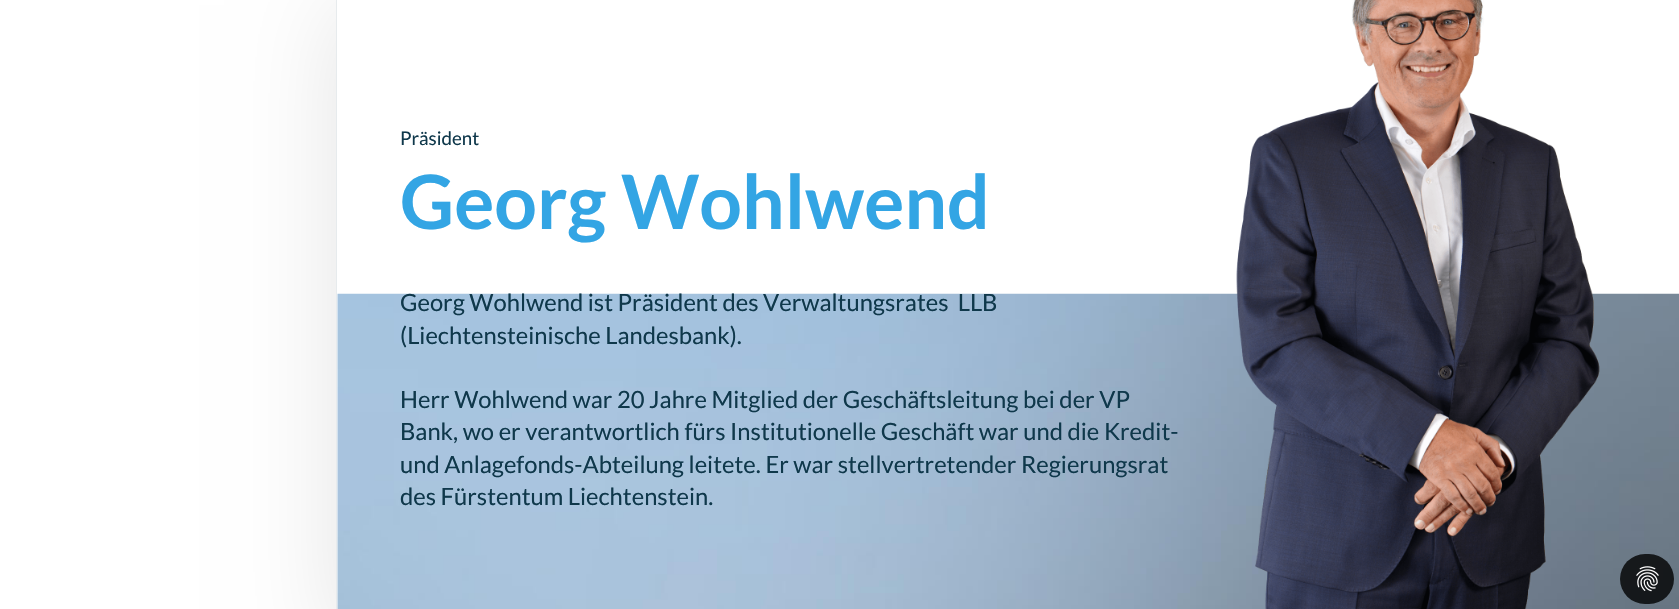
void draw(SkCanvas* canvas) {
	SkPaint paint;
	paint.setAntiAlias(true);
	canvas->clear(0xffffffff);
	paint.setColor(0x1a000000);
	paint.setMaskFilter(SkMaskFilter::MakeBlur(kNormal_SkBlurStyle, 46));
	canvas->drawRect(SkRect::MakeXYWH(336, 5, 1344, 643), paint);
	paint.setMaskFilter(nullptr);
	paint.setColor(0xffffffff);
	canvas->drawRect(SkRect::MakeXYWH(337, 0, 1342, 609), paint);
	canvas->drawImageRect(SkImages::DeferredFromEncodedData(SkData::MakeFromFileName("img1.png")), SkRect::MakeXYWH(337, 293, 1342, 316), SkSamplingOptions());
	paint.setColor(0xffe7ebed);
	canvas->drawRect(SkRect::MakeXYWH(336, 0, 1, 609), paint);
	SkFont f1(fontMgr->matchFamilyStyle("Lato", SkFontStyle::Normal()), 18.75);
	f1.setSubpixel(true);
	paint.setColor(0xff0f384b);
	canvas->drawString("Präsident", 400, 145, f1, paint);
	SkFont f2(fontMgr->matchFamilyStyle("Lato", SkFontStyle::Bold()), 75);
	f2.setSubpixel(true);
	paint.setColor(0xff33a5e4);
	canvas->drawString("Georg Wohlwend", 400, 229, f2, paint);
	SkFont f3(fontMgr->matchFamilyStyle("Lato", SkFontStyle::Normal()), 23.75);
	f3.setSubpixel(true);
	paint.setColor(0xff0f384b);
	canvas->drawString("Georg Wohlwend ist Präsident des Verwaltungsrates  LLB", 400, 311, f3, paint);
	canvas->drawString("(Liechtensteinische Landesbank).", 400, 344, f3, paint);
	canvas->drawString("Herr Wohlwend war 20 Jahre Mitglied der Geschäftsleitung bei der VP", 400, 408, f3, paint);
	canvas->drawString("Bank, wo er verantwortlich fürs Institutionelle Geschäft war und die Kredit-", 400, 440, f3, paint);
	canvas->drawString("und Anlagefonds-Abteilung leitete. Er war stellvertretender Regierungsrat", 400, 473, f3, paint);
	canvas->drawString("des Fürstentum Liechtenstein.", 400, 505, f3, paint);
	canvas->drawImageRect(SkImages::DeferredFromEncodedData(SkData::MakeFromFileName("img2.png")), SkRect::MakeXYWH(1236, 0, 364, 609), SkSamplingOptions());
	paint.setColor(0xcc000000);
	canvas->drawRoundRect(SkRect::MakeXYWH(1620, 554, 54, 50), 25, 25, paint);
	canvas->drawImageRect(SkImages::DeferredFromEncodedData(SkData::MakeFromFileName("img3.png")), SkRect::MakeXYWH(1636, 566, 23, 26), SkSamplingOptions());
}
